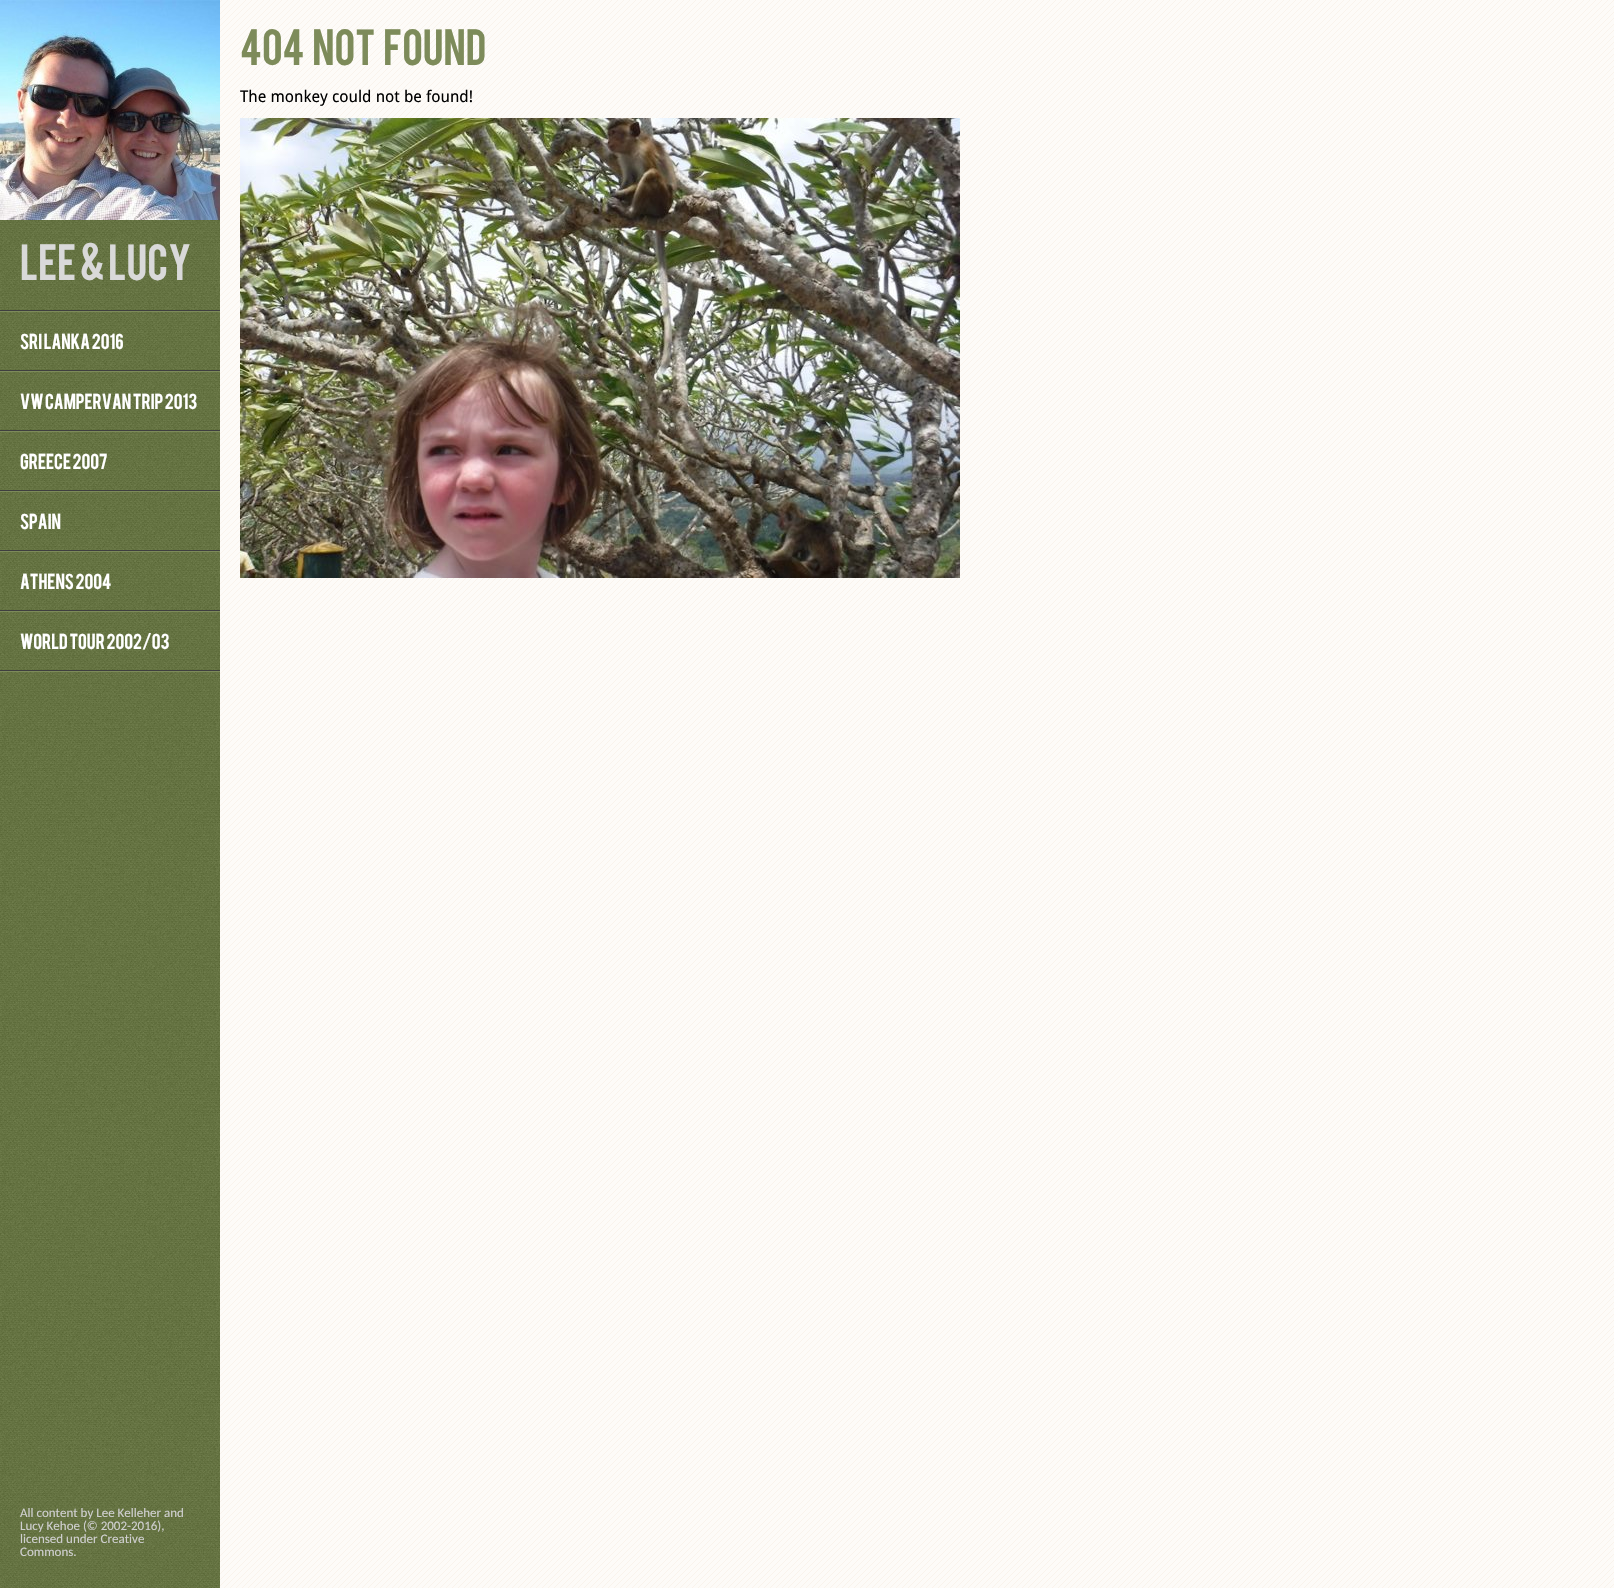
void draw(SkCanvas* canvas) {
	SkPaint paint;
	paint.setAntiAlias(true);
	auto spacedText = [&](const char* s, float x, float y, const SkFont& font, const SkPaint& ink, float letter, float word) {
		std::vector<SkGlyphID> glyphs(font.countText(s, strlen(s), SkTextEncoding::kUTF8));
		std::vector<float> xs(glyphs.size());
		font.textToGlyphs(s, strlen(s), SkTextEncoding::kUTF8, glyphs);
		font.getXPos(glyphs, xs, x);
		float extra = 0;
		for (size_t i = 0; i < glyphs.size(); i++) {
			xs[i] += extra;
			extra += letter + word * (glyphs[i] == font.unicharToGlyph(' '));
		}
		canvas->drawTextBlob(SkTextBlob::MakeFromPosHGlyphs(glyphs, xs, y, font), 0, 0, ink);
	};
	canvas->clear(0xffffffff);
	canvas->drawImageRect(SkImages::DeferredFromEncodedData(SkData::MakeFromFileName("img1.png")), SkRect::MakeXYWH(220, 0, 1394, 1588), SkSamplingOptions());
	SkFont f1(fontMgr->matchFamilyStyle("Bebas", SkFontStyle::Normal()), 40);
	f1.setSubpixel(true);
	paint.setColor(0xff7d8b5a);
	spacedText("404 Not Found", 240, 65, f1, paint, 0, 4);
	SkFont f2(fontMgr->matchFamilyStyle("Droid Sans", SkFontStyle::Normal()), 16);
	f2.setSubpixel(true);
	paint.setColor(0xff000000);
	canvas->drawString("The monkey could not be found!", 240, 102, f2, paint);
	canvas->drawImageRect(SkImages::DeferredFromEncodedData(SkData::MakeFromFileName("img2.png")), SkRect::MakeXYWH(240, 118, 720, 460), SkSamplingOptions());
	canvas->drawImageRect(SkImages::DeferredFromEncodedData(SkData::MakeFromFileName("img3.png")), SkRect::MakeXYWH(0, 220, 220, 1368), SkSamplingOptions());
	canvas->drawImageRect(SkImages::DeferredFromEncodedData(SkData::MakeFromFileName("img4.png")), SkRect::MakeXYWH(0, 0, 220, 220), SkSamplingOptions());
	paint.setColor(0xffd9d9d9);
	canvas->drawString("Lee & Lucy", 20, 280, f1, paint);
	paint.setColor(0xff3f3f3f);
	canvas->drawRect(SkRect::MakeXYWH(0, 310, 220, 1), paint);
	paint.setColor(0xff7d8b5a);
	canvas->drawRect(SkRect::MakeXYWH(0, 671, 220, 1), paint);
	canvas->drawRect(SkRect::MakeXYWH(0, 311, 220, 1), paint);
	paint.setColor(0xff3f3f3f);
	canvas->drawRect(SkRect::MakeXYWH(0, 370, 220, 1), paint);
	SkFont f3(fontMgr->matchFamilyStyle("Bebas", SkFontStyle::Normal()), 17);
	f3.setSubpixel(true);
	paint.setColor(0xffffffff);
	canvas->drawString("Sri Lanka 2016", 20, 349, f3, paint);
	paint.setColor(0xff7d8b5a);
	canvas->drawRect(SkRect::MakeXYWH(0, 371, 220, 1), paint);
	paint.setColor(0xff3f3f3f);
	canvas->drawRect(SkRect::MakeXYWH(0, 430, 220, 1), paint);
	paint.setColor(0xffffffff);
	canvas->drawString("VW Campervan Trip 2013", 20, 409, f3, paint);
	paint.setColor(0xff7d8b5a);
	canvas->drawRect(SkRect::MakeXYWH(0, 431, 220, 1), paint);
	paint.setColor(0xff3f3f3f);
	canvas->drawRect(SkRect::MakeXYWH(0, 490, 220, 1), paint);
	paint.setColor(0xffffffff);
	canvas->drawString("Greece 2007", 20, 469, f3, paint);
	paint.setColor(0xff7d8b5a);
	canvas->drawRect(SkRect::MakeXYWH(0, 491, 220, 1), paint);
	paint.setColor(0xff3f3f3f);
	canvas->drawRect(SkRect::MakeXYWH(0, 550, 220, 1), paint);
	paint.setColor(0xffffffff);
	canvas->drawString("Spain", 20, 529, f3, paint);
	paint.setColor(0xff7d8b5a);
	canvas->drawRect(SkRect::MakeXYWH(0, 551, 220, 1), paint);
	paint.setColor(0xff3f3f3f);
	canvas->drawRect(SkRect::MakeXYWH(0, 610, 220, 1), paint);
	paint.setColor(0xffffffff);
	canvas->drawString("Athens 2004", 20, 589, f3, paint);
	paint.setColor(0xff7d8b5a);
	canvas->drawRect(SkRect::MakeXYWH(0, 611, 220, 1), paint);
	paint.setColor(0xff3f3f3f);
	canvas->drawRect(SkRect::MakeXYWH(0, 670, 220, 1), paint);
	paint.setColor(0xffffffff);
	canvas->drawString("World Tour 2002/03", 20, 649, f3, paint);
	SkFont f4(fontMgr->matchFamilyStyle("Carlito", SkFontStyle::Normal()), 13);
	f4.setSubpixel(true);
	paint.setColor(0xffcfcfcf);
	canvas->drawString("All content by Lee Kelleher and", 20, 1517, f4, paint);
	canvas->drawString("Lucy Kehoe (© 2002-2016),", 20, 1530, f4, paint);
	canvas->drawString("licensed under Creative", 20, 1543, f4, paint);
	canvas->drawString("Commons.", 20, 1556, f4, paint);
}
